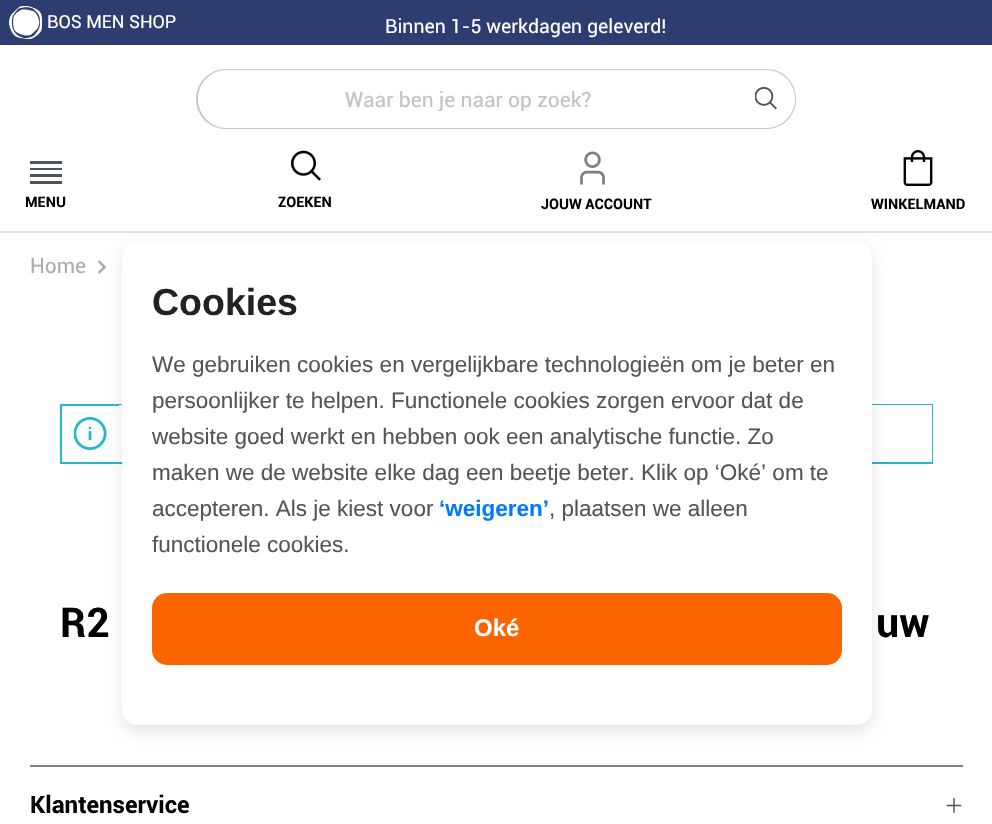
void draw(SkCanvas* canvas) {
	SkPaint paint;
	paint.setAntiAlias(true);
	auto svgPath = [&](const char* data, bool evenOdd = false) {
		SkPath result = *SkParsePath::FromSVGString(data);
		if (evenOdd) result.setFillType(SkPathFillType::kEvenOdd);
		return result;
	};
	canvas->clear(0xffffffff);
	paint.setColor(0xff2d3d70);
	canvas->drawRect(SkRect::MakeXYWH(0, 0, 992, 45), paint);
	canvas->drawImageRect(SkImages::DeferredFromEncodedData(SkData::MakeFromFileName("img1.png")), SkRect::MakeXYWH(9, 6, 33, 33), SkSamplingOptions());
	SkFont f1(fontMgr->matchFamilyStyle("Roboto", SkFontStyle::Normal()), 18);
	f1.setSubpixel(true);
	paint.setColor(0xffffffff);
	canvas->drawString("BOS MEN SHOP", 47, 28, f1, paint);
	SkFont f2(fontMgr->matchFamilyStyle("Roboto", SkFontStyle::Normal()), 19.5);
	f2.setSubpixel(true);
	canvas->drawString("Binnen 1-5 werkdagen geleverd!", 385, 33, f2, paint);
	paint.setColor(0xffe1e1e1);
	canvas->drawRect(SkRect::MakeXYWH(0, 231, 992, 2), paint);
	paint.setColor(0xffc6c7c5);
	canvas->drawPath(svgPath("M226 69H738V129H226C210 129 196 116 196 99C196 82 210 69 226 69ZM226 70H738V128H226C211 128 198 115 198 99C198 83 211 70 226 70Z", true), paint);
	canvas->save();
	canvas->clipRect(SkRect::MakeXYWH(212, 87, 513, 24));
	SkFont f3(fontMgr->matchFamilyStyle("Roboto", SkFontStyle::Normal()), 21);
	f3.setSubpixel(true);
	paint.setColor(0xffc3c3c3);
	canvas->drawString("Waar ben je naar op zoek?", 345, 107, f3, paint);
	canvas->restore();
	paint.setColor(0xffffffff);
	canvas->drawPath(svgPath("M737 69H767C783.5 69 797 82.5 797 99C797 115.5 783.5 129 767 129H737Z"), paint);
	paint.setColor(0xffc6c7c5);
	canvas->drawPath(svgPath("M736 69H766C783 69 796 82 796 99C796 116 783 129 766 129H736ZM736 70H766C782 70 795 83 795 99C795 115 782 128 766 128H736Z", true), paint);
	canvas->drawImageRect(SkImages::DeferredFromEncodedData(SkData::MakeFromFileName("img2.png")), SkRect::MakeXYWH(755, 87, 22, 23), SkSamplingOptions());
	paint.setColor(0xff4c565c);
	canvas->drawRect(SkRect::MakeXYWH(30, 161, 32, 3), paint);
	canvas->drawRect(SkRect::MakeXYWH(30, 168, 32, 2), paint);
	canvas->drawRect(SkRect::MakeXYWH(30, 181, 32, 3), paint);
	canvas->drawRect(SkRect::MakeXYWH(30, 174, 32, 3), paint);
	SkFont f4(fontMgr->matchFamilyStyle("Roboto", SkFontStyle::Bold()), 14.5);
	f4.setSubpixel(true);
	paint.setColor(0xff000000);
	canvas->drawString("MENU", 25, 207, f4, paint);
	canvas->drawImageRect(SkImages::DeferredFromEncodedData(SkData::MakeFromFileName("img3.png")), SkRect::MakeXYWH(291, 150, 30, 31), SkSamplingOptions());
	canvas->drawString("ZOEKEN", 278, 207, f4, paint);
	canvas->drawImageRect(SkImages::DeferredFromEncodedData(SkData::MakeFromFileName("img4.png")), SkRect::MakeXYWH(580, 151, 25, 34), SkSamplingOptions());
	canvas->drawString("JOUW ACCOUNT", 541, 209, f4, paint);
	canvas->drawImageRect(SkImages::DeferredFromEncodedData(SkData::MakeFromFileName("img5.png")), SkRect::MakeXYWH(903, 150, 30, 36), SkSamplingOptions());
	canvas->drawString("WINKELMAND", 871, 209, f4, paint);
	paint.setColor(0xffacadaf);
	canvas->drawString("Home", 30, 273, f3, paint);
	canvas->drawImageRect(SkImages::DeferredFromEncodedData(SkData::MakeFromFileName("img6.png")), SkRect::MakeXYWH(98, 260, 8, 14), SkSamplingOptions());
	paint.setStroke(true);
	paint.setStrokeWidth(2);
	paint.setColor(0xff26b6cf);
	canvas->drawRect(SkRect::MakeXYWH(61, 405, 871, 58), paint);
	canvas->drawImageRect(SkImages::DeferredFromEncodedData(SkData::MakeFromFileName("img7.png")), SkRect::MakeXYWH(74, 417, 33, 33), SkSamplingOptions());
	paint.setStroke(false);
	paint.setColor(0xffffffff);
	canvas->drawRect(SkRect::MakeXYWH(119, 405, 813, 57), paint);
	SkFont f5(fontMgr->matchFamilyStyle("Roboto", SkFontStyle::Bold()), 41);
	f5.setSubpixel(true);
	paint.setColor(0xff000000);
	canvas->drawString("R2", 60, 637, f5, paint);
	canvas->drawString("uw", 876, 637, f5, paint);
	paint.setColor(0x1a000000);
	paint.setMaskFilter(SkMaskFilter::MakeBlur(kNormal_SkBlurStyle, 7.5));
	canvas->drawRoundRect(SkRect::MakeXYWH(122, 248, 750, 483), 15, 15, paint);
	paint.setMaskFilter(nullptr);
	paint.setColor(0xffffffff);
	canvas->drawRoundRect(SkRect::MakeXYWH(122, 242, 750, 483), 15, 15, paint);
	SkFont f6(fontMgr->matchFamilyStyle("Liberation Sans", SkFontStyle::Bold()), 37.5);
	f6.setSubpixel(true);
	paint.setColor(0xff222222);
	canvas->drawString("Cookies", 152, 315, f6, paint);
	SkFont f7(fontMgr->matchFamilyStyle("Liberation Sans", SkFontStyle::Normal()), 22.5);
	f7.setSubpixel(true);
	paint.setColor(0xff555555);
	canvas->drawString("We gebruiken cookies en vergelijkbare technologieën om je beter en", 152, 372, f7, paint);
	canvas->drawString("persoonlijker te helpen. Functionele cookies zorgen ervoor dat de", 152, 408, f7, paint);
	canvas->drawString("website goed werkt en hebben ook een analytische functie. Zo", 152, 444, f7, paint);
	canvas->drawString("maken we de website elke dag een beetje beter. Klik op ‘Oké’ om te", 152, 480, f7, paint);
	canvas->drawString("accepteren. Als je kiest voor", 152, 516, f7, paint);
	SkFont f8(fontMgr->matchFamilyStyle("Liberation Sans", SkFontStyle::Bold()), 22.5);
	f8.setSubpixel(true);
	paint.setColor(0xff007bff);
	canvas->drawString("‘weigeren’", 439, 516, f8, paint);
	paint.setColor(0xff555555);
	canvas->drawString(", plaatsen we alleen", 549, 516, f7, paint);
	canvas->drawString("functionele cookies.", 152, 552, f7, paint);
	paint.setColor(0xfffc6400);
	canvas->drawRoundRect(SkRect::MakeXYWH(152, 593, 690, 72), 15, 15, paint);
	SkFont f9(fontMgr->matchFamilyStyle("Liberation Sans", SkFontStyle::Bold()), 24);
	f9.setSubpixel(true);
	paint.setColor(0xffffffff);
	canvas->drawString("Oké", 474, 636, f9, paint);
	paint.setColor(0xff798490);
	canvas->drawRect(SkRect::MakeXYWH(30, 765, 933, 2), paint);
	SkFont f10(fontMgr->matchFamilyStyle("Roboto", SkFontStyle::Bold()), 24);
	f10.setSubpixel(true);
	paint.setColor(0xff000000);
	canvas->drawString("Klantenservice", 30, 813, f10, paint);
	canvas->drawImageRect(SkImages::DeferredFromEncodedData(SkData::MakeFromFileName("img8.png")), SkRect::MakeXYWH(946, 798, 16, 15), SkSamplingOptions());
}
